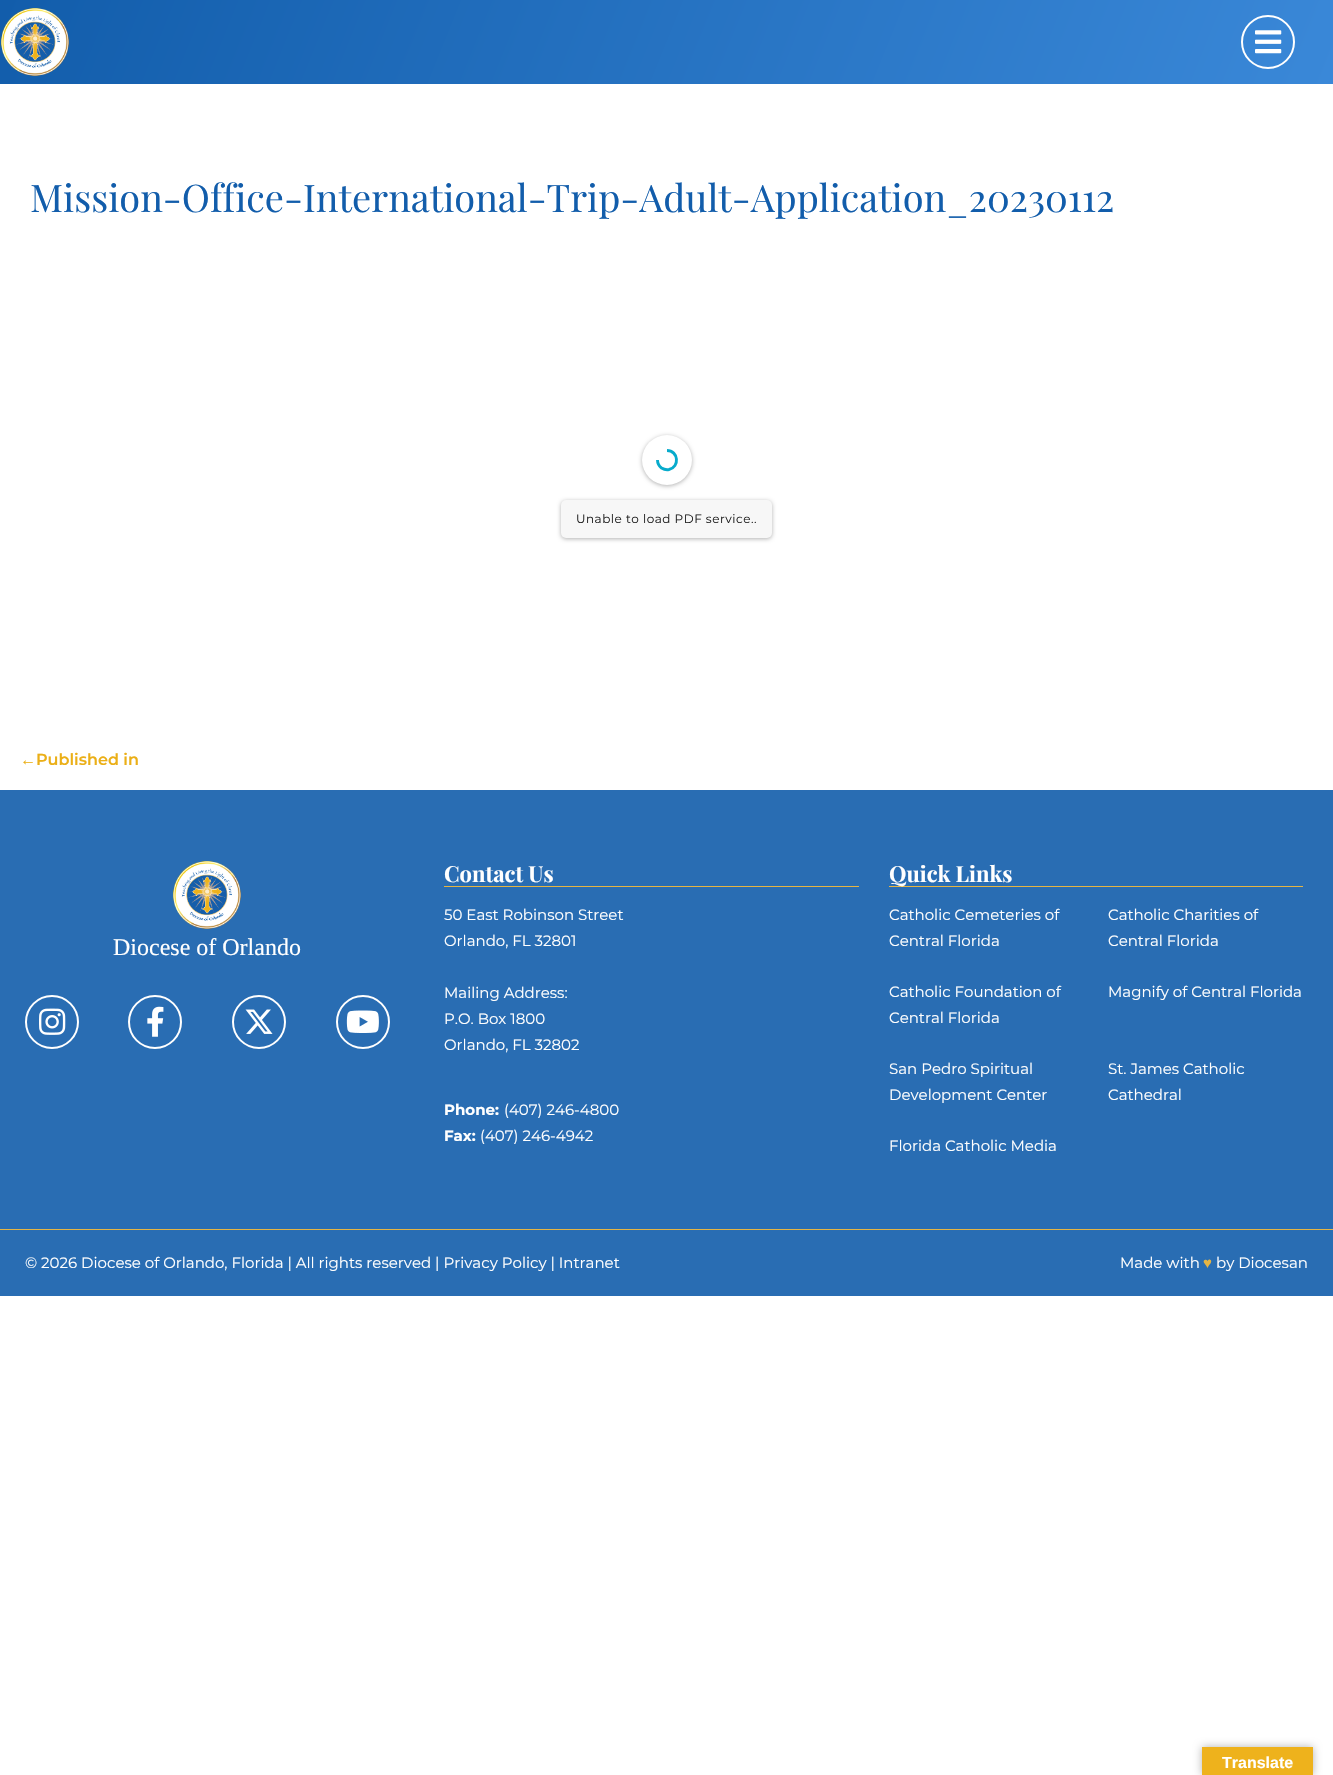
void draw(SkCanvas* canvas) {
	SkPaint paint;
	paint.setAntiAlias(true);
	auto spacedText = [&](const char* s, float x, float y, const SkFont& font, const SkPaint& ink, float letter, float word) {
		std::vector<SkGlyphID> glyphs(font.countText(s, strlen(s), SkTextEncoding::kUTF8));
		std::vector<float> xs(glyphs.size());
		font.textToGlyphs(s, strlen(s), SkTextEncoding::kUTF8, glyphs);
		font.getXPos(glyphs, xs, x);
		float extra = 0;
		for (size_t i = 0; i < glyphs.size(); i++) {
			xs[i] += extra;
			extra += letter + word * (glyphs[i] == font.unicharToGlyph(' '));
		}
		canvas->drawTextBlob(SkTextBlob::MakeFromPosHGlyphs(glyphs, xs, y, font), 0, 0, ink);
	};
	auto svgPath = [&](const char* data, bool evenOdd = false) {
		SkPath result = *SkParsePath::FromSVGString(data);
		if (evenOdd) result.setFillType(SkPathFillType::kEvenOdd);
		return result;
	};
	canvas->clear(0xffffffff);
	{
		const SkColor colors[] = {0xff125dab, 0xff3a88d8};
		const float stops[] = {0, 1};
		const SkPoint ends[] = {{79, -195}, {1254, 279}};
		paint.setShader(SkGradientShader::MakeLinear(ends, colors, stops, 2, SkTileMode::kClamp));
		paint.setAlpha(255);
	}
	canvas->drawRect(SkRect::MakeXYWH(0, 0, 1333, 84), paint);
	canvas->drawImageRect(SkImages::DeferredFromEncodedData(SkData::MakeFromFileName("img1.png")), SkRect::MakeXYWH(1, 8, 68, 68), SkSamplingOptions());
	paint.setStroke(true);
	paint.setStrokeWidth(2);
	paint.setShader(nullptr);
	paint.setColor(0xffffffff);
	canvas->drawCircle(1268, 42, 26, paint);
	canvas->drawImageRect(SkImages::DeferredFromEncodedData(SkData::MakeFromFileName("img2.png")), SkRect::MakeXYWH(1255, 30, 27, 24), SkSamplingOptions());
	SkFont f1(fontMgr->matchFamilyStyle("Playfair Display", SkFontStyle::Normal()), 38);
	f1.setSubpixel(true);
	paint.setStroke(false);
	paint.setColor(0xff125dab);
	canvas->drawString("Mission-Office-International-Trip-Adult-Application_20230112", 30, 212, f1, paint);
	paint.setColor(0x4d000000);
	paint.setMaskFilter(SkMaskFilter::MakeBlur(kNormal_SkBlurStyle, 2));
	canvas->drawRoundRect(SkRect::MakeXYWH(642, 436, 50, 50), 25, 25, paint);
	paint.setMaskFilter(nullptr);
	paint.setColor(0xffffffff);
	canvas->drawCircle(667, 460, 25, paint);
	paint.setStroke(true);
	paint.setStrokeWidth(2.9);
	paint.setColor(0xff07abcc);
	canvas->drawPath(svgPath("M667 450.5C678.5 450.5 680 467 669 469.5C666.5 470 664 469.5 661.5 468C659 466 657.5 463 657.5 460"), paint);
	paint.setStroke(false);
	paint.setColor(0x4d000000);
	paint.setMaskFilter(SkMaskFilter::MakeBlur(kNormal_SkBlurStyle, 2));
	canvas->drawRoundRect(SkRect::MakeXYWH(561, 501, 211, 38), 5, 5, paint);
	paint.setMaskFilter(nullptr);
	paint.setColor(0xfff7f7f7);
	canvas->drawRoundRect(SkRect::MakeXYWH(561, 500, 211, 38), 5, 5, paint);
	SkFont f2(fontMgr->matchFamilyStyle("Montserrat", SkFontStyle::Normal()), 12);
	f2.setSubpixel(true);
	paint.setColor(0xff222222);
	spacedText("Unable to load PDF service..", 576, 523, f2, paint, 0.5, 0);
	SkFont f3(fontMgr->matchFamilyStyle("Liberation Sans", SkFontStyle::Bold()), 16);
	f3.setSubpixel(true);
	paint.setColor(0xffebaf17);
	canvas->drawString("←", 20, 765, f3, paint);
	SkFont f4(fontMgr->matchFamilyStyle("Montserrat", SkFontStyle(600, SkFontStyle::kNormal_Width, SkFontStyle::kUpright_Slant)), 16);
	f4.setSubpixel(true);
	canvas->drawString("Published in", 36, 765, f4, paint);
	paint.setColor(0xff296db3);
	canvas->drawRect(SkRect::MakeXYWH(0, 790, 1333, 506), paint);
	canvas->drawImageRect(SkImages::DeferredFromEncodedData(SkData::MakeFromFileName("img3.png")), SkRect::MakeXYWH(173, 861, 68, 68), SkSamplingOptions());
	SkFont f5(fontMgr->matchFamilyStyle("Liberation Serif", SkFontStyle::Normal()), 24);
	f5.setSubpixel(true);
	paint.setColor(0xffffffff);
	canvas->drawString("Diocese of Orlando", 113, 955, f5, paint);
	paint.setStroke(true);
	paint.setStrokeWidth(2);
	canvas->drawCircle(52, 1022, 26, paint);
	canvas->drawImageRect(SkImages::DeferredFromEncodedData(SkData::MakeFromFileName("img4.png")), SkRect::MakeXYWH(39, 1008, 27, 27), SkSamplingOptions());
	canvas->drawCircle(155, 1022, 26, paint);
	canvas->drawImageRect(SkImages::DeferredFromEncodedData(SkData::MakeFromFileName("img5.png")), SkRect::MakeXYWH(147, 1006, 17, 31), SkSamplingOptions());
	canvas->drawCircle(259, 1022, 26, paint);
	canvas->drawImageRect(SkImages::DeferredFromEncodedData(SkData::MakeFromFileName("img6.png")), SkRect::MakeXYWH(245, 1009, 28, 25), SkSamplingOptions());
	canvas->drawCircle(363, 1022, 26, paint);
	canvas->drawImageRect(SkImages::DeferredFromEncodedData(SkData::MakeFromFileName("img7.png")), SkRect::MakeXYWH(346, 1010, 33, 23), SkSamplingOptions());
	paint.setStroke(false);
	paint.setColor(0xffe5b544);
	canvas->drawRect(SkRect::MakeXYWH(444, 886, 415, 1), paint);
	SkFont f6(fontMgr->matchFamilyStyle("Playfair Display", SkFontStyle::Bold()), 22);
	f6.setSubpixel(true);
	paint.setColor(0xffffffff);
	canvas->drawString("Contact Us", 444, 882, f6, paint);
	SkFont f7(fontMgr->matchFamilyStyle("Montserrat", SkFontStyle::Normal()), 15);
	f7.setSubpixel(true);
	canvas->drawString("50 East Robinson Street", 444, 920, f7, paint);
	canvas->drawString("Orlando, FL 32801", 444, 946, f7, paint);
	canvas->drawString("Mailing Address:", 444, 998, f7, paint);
	canvas->drawString("P.O. Box 1800", 444, 1024, f7, paint);
	canvas->drawString("Orlando, FL 32802", 444, 1050, f7, paint);
	SkFont f8(fontMgr->matchFamilyStyle("Montserrat", SkFontStyle::Bold()), 15);
	f8.setSubpixel(true);
	canvas->drawString("Phone:", 444, 1115, f8, paint);
	canvas->drawString("(407) 246-4800", 504, 1115, f7, paint);
	canvas->drawString("Fax:", 444, 1141, f8, paint);
	canvas->drawString("(407) 246-4942", 480, 1141, f7, paint);
	paint.setColor(0xffe5b544);
	canvas->drawRect(SkRect::MakeXYWH(889, 886, 414, 1), paint);
	paint.setColor(0xffffffff);
	canvas->drawString("Quick Links", 889, 882, f6, paint);
	canvas->drawString("Catholic Cemeteries of", 889, 920, f7, paint);
	canvas->drawString("Central Florida", 889, 946, f7, paint);
	canvas->drawString("Catholic Charities of", 1108, 920, f7, paint);
	canvas->drawString("Central Florida", 1108, 946, f7, paint);
	canvas->drawString("Catholic Foundation of", 889, 997, f7, paint);
	canvas->drawString("Central Florida", 889, 1023, f7, paint);
	canvas->drawString("Magnify of Central Florida", 1108, 997, f7, paint);
	canvas->drawString("San Pedro Spiritual", 889, 1074, f7, paint);
	canvas->drawString("Development Center", 889, 1100, f7, paint);
	canvas->drawString("St. James Catholic", 1108, 1074, f7, paint);
	canvas->drawString("Cathedral", 1108, 1100, f7, paint);
	canvas->drawString("Florida Catholic Media", 889, 1151, f7, paint);
	paint.setColor(0xffe5b544);
	canvas->drawRect(SkRect::MakeXYWH(0, 1229, 1333, 1), paint);
	paint.setColor(0xffffffff);
	canvas->drawString("© 2026 Diocese of Orlando, Florida | All rights reserved | Privacy Policy | Intranet", 25, 1268, f7, paint);
	canvas->drawString("Made with", 1120, 1268, f7, paint);
	SkFont f9(fontMgr->matchFamilyStyle("Liberation Sans", SkFontStyle::Normal()), 15);
	f9.setSubpixel(true);
	paint.setColor(0xffe5b544);
	canvas->drawString("♥", 1203, 1268, f9, paint);
	paint.setColor(0xffffffff);
	canvas->drawString("by Diocesan", 1216, 1268, f7, paint);
	paint.setColor(0x4d000000);
	paint.setMaskFilter(SkMaskFilter::MakeBlur(kNormal_SkBlurStyle, 4.5));
	canvas->drawRect(SkRect::MakeXYWH(1202, 1747, 111, 28), paint);
	paint.setMaskFilter(nullptr);
	paint.setColor(0xffeeb21c);
	canvas->drawRect(SkRect::MakeXYWH(1202, 1747, 111, 28), paint);
	paint.setColor(0xffffffff);
	canvas->drawString("Translate", 1222, 1768, f3, paint);
}
